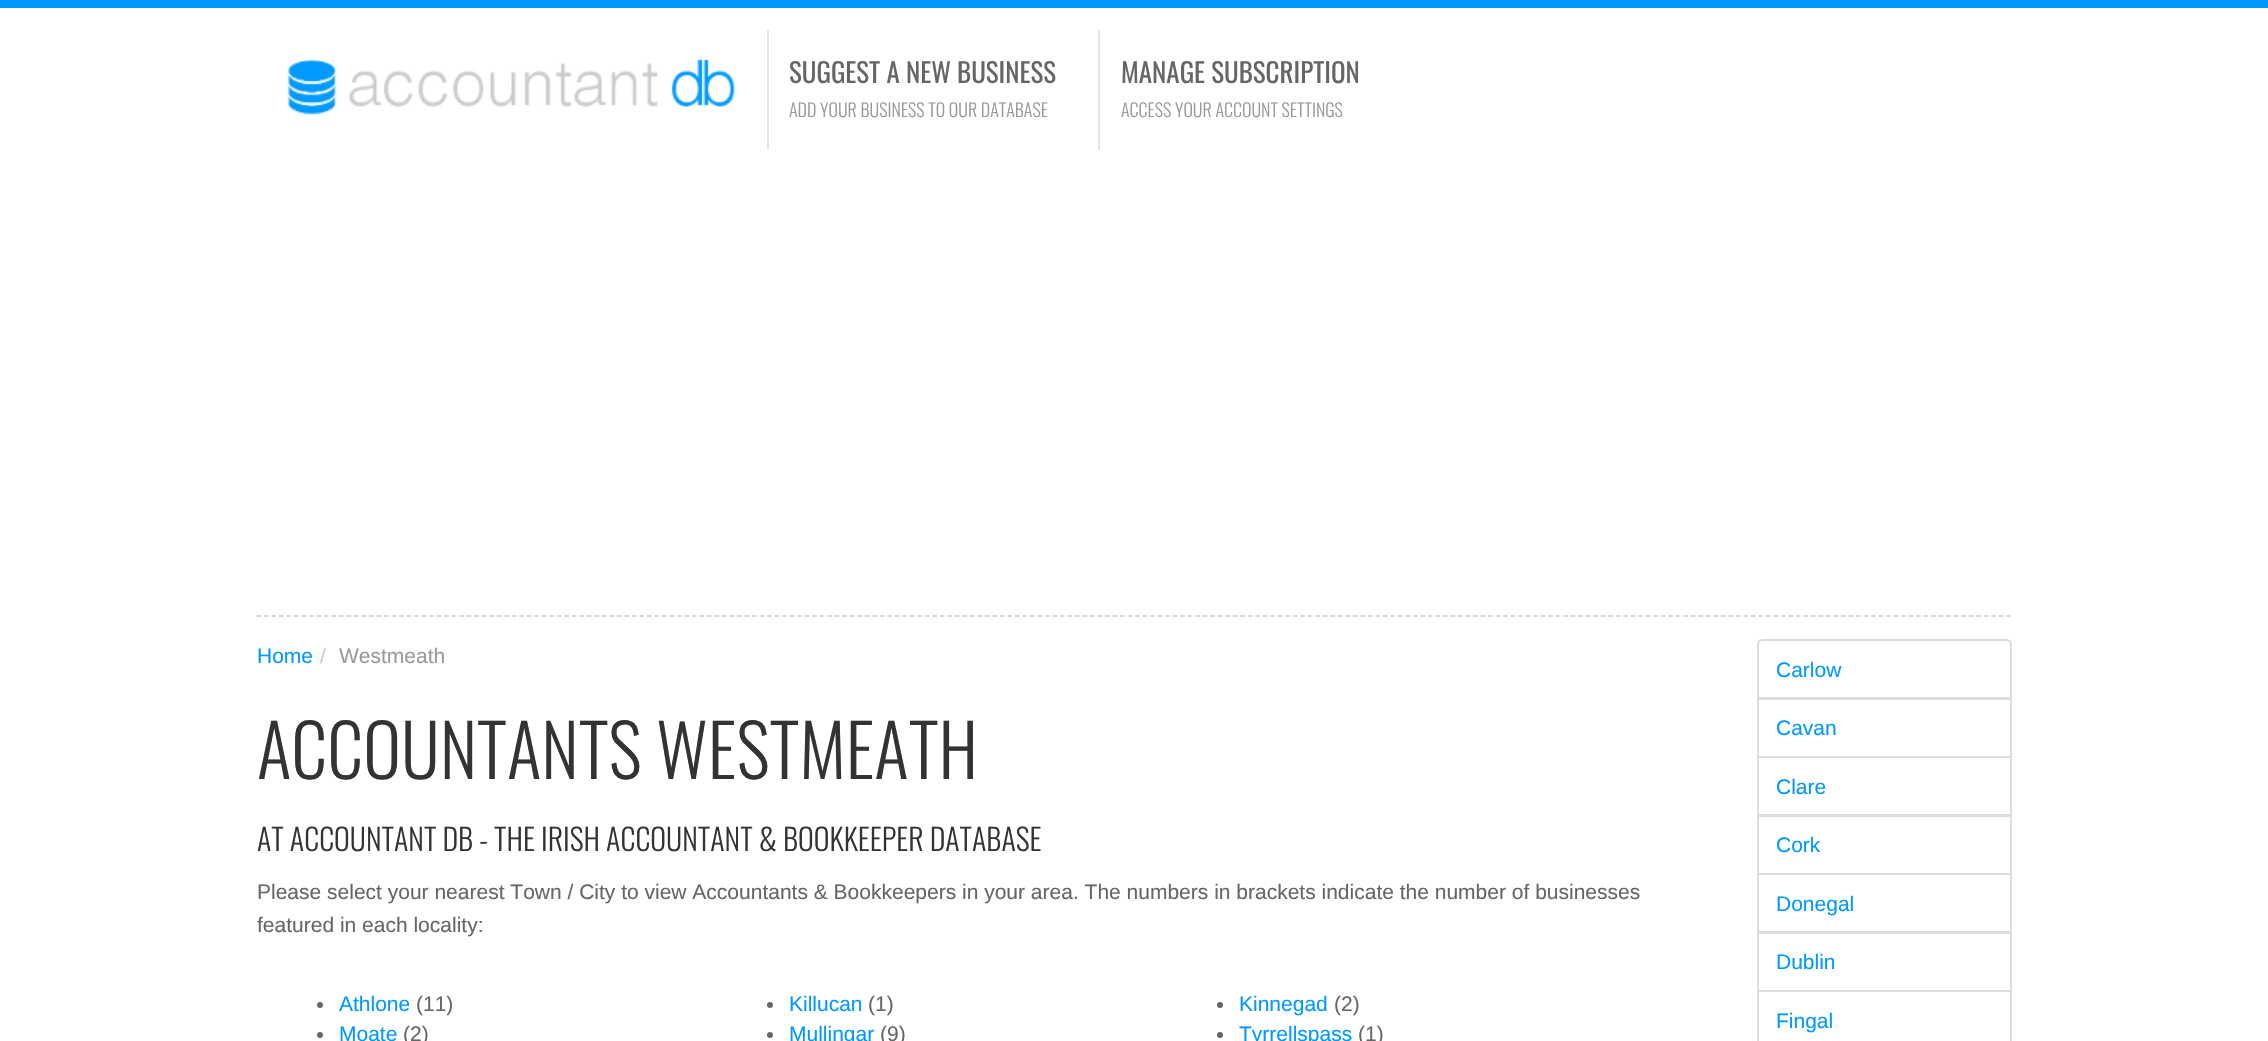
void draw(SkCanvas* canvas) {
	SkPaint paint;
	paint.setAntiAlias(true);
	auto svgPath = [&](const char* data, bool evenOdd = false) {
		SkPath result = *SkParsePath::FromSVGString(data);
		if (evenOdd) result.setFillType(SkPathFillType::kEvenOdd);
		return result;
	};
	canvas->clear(0xffffffff);
	paint.setColor(0xff0099ff);
	canvas->drawRect(SkRect::MakeXYWH(0, 0, 2268, 8), paint);
	canvas->drawImageRect(SkImages::DeferredFromEncodedData(SkData::MakeFromFileName("img1.png")), SkRect::MakeXYWH(287, 57, 449, 58), SkSamplingOptions());
	paint.setColor(0xffe5e5e5);
	canvas->drawRect(SkRect::MakeXYWH(767, 30, 2, 120), paint);
	SkFont f1(fontMgr->matchFamilyStyle("Oswald", SkFontStyle::Normal()), 27);
	f1.setSubpixel(true);
	paint.setColor(0xff666666);
	canvas->drawString("SUGGEST A NEW BUSINESS", 789, 83, f1, paint);
	SkFont f2(fontMgr->matchFamilyStyle("Oswald", SkFontStyle(300, SkFontStyle::kNormal_Width, SkFontStyle::kUpright_Slant)), 18);
	f2.setSubpixel(true);
	paint.setColor(0xff999999);
	canvas->drawString("ADD YOUR BUSINESS TO OUR DATABASE", 789, 117, f2, paint);
	paint.setColor(0xffe5e5e5);
	canvas->drawRect(SkRect::MakeXYWH(1098, 30, 2, 120), paint);
	paint.setColor(0xff666666);
	canvas->drawString("MANAGE SUBSCRIPTION", 1121, 83, f1, paint);
	paint.setColor(0xff999999);
	canvas->drawString("ACCESS YOUR ACCOUNT SETTINGS", 1121, 117, f2, paint);
	paint.setStroke(true);
	paint.setStrokeWidth(1.5);
	paint.setColor(0xffcccccc);
	paint.setPathEffect(SkDashPathEffect::Make({{4.5f, 3.01f}}, 0));
	canvas->drawPath(svgPath("M256.5 616H2011.5"), paint);
	paint.setPathEffect(nullptr);
	SkFont f3(fontMgr->matchFamilyStyle("Liberation Sans", SkFontStyle::Normal()), 21);
	f3.setSubpixel(true);
	paint.setStroke(false);
	paint.setColor(0xff0099ff);
	canvas->drawString("Home", 257, 663, f3, paint);
	paint.setColor(0xffcccccc);
	canvas->drawString("/", 320, 663, f3, paint);
	paint.setColor(0xff999999);
	canvas->drawString("Westmeath", 339, 663, f3, paint);
	SkFont f4(fontMgr->matchFamilyStyle("Oswald", SkFontStyle(300, SkFontStyle::kNormal_Width, SkFontStyle::kUpright_Slant)), 72);
	f4.setSubpixel(true);
	paint.setColor(0xff333333);
	canvas->drawString("ACCOUNTANTS WESTMEATH", 257, 779, f4, paint);
	SkFont f5(fontMgr->matchFamilyStyle("Oswald", SkFontStyle(300, SkFontStyle::kNormal_Width, SkFontStyle::kUpright_Slant)), 30);
	f5.setSubpixel(true);
	canvas->drawString("AT ACCOUNTANT DB - THE IRISH ACCOUNTANT & BOOKKEEPER DATABASE", 257, 851, f5, paint);
	paint.setColor(0xff666666);
	canvas->drawString("Please select your nearest Town / City to view Accountants & Bookkeepers in your area. The numbers in brackets indicate the number of businesses", 257, 899, f3, paint);
	canvas->drawString("featured in each locality:", 257, 932, f3, paint);
	canvas->drawCircle(320, 1005, 3, paint);
	paint.setColor(0xff0099ff);
	canvas->drawString("Athlone", 339, 1011, f3, paint);
	paint.setColor(0xff666666);
	canvas->drawString("(11)", 416, 1011, f3, paint);
	canvas->drawCircle(770, 1005, 3, paint);
	paint.setColor(0xff0099ff);
	canvas->drawString("Killucan", 789, 1011, f3, paint);
	paint.setColor(0xff666666);
	canvas->drawString("(1)", 868, 1011, f3, paint);
	canvas->drawCircle(1220, 1005, 3, paint);
	paint.setColor(0xff0099ff);
	canvas->drawString("Kinnegad", 1239, 1011, f3, paint);
	paint.setColor(0xff666666);
	canvas->drawString("(2)", 1334, 1011, f3, paint);
	canvas->drawCircle(320, 1035, 3, paint);
	paint.setColor(0xff0099ff);
	canvas->drawString("Moate", 339, 1041, f3, paint);
	paint.setColor(0xff666666);
	canvas->drawString("(2)", 403, 1041, f3, paint);
	canvas->drawCircle(770, 1035, 3, paint);
	paint.setColor(0xff0099ff);
	canvas->drawString("Mullingar", 789, 1041, f3, paint);
	paint.setColor(0xff666666);
	canvas->drawString("(9)", 880, 1041, f3, paint);
	canvas->drawCircle(1220, 1035, 3, paint);
	paint.setColor(0xff0099ff);
	canvas->drawString("Tyrrellspass", 1239, 1041, f3, paint);
	paint.setColor(0xff666666);
	canvas->drawString("(1)", 1358, 1041, f3, paint);
	paint.setStroke(true);
	paint.setStrokeWidth(2);
	paint.setColor(0xffdddddd);
	canvas->drawPath(svgPath("M1763 640H2006C2009 640 2011 642 2011 645V698H1758V645C1758 642 1760 640 1763 640Z"), paint);
	paint.setStroke(false);
	paint.setColor(0xff0099ff);
	canvas->drawString("Carlow", 1776, 677, f3, paint);
	paint.setStroke(true);
	paint.setColor(0xffdddddd);
	canvas->drawRect(SkRect::MakeXYWH(1758, 699, 253, 58), paint);
	paint.setStroke(false);
	paint.setColor(0xff0099ff);
	canvas->drawString("Cavan", 1776, 735, f3, paint);
	paint.setStroke(true);
	paint.setColor(0xffdddddd);
	canvas->drawRect(SkRect::MakeXYWH(1758, 757, 253, 58), paint);
	paint.setStroke(false);
	paint.setColor(0xff0099ff);
	canvas->drawString("Clare", 1776, 794, f3, paint);
	paint.setStroke(true);
	paint.setColor(0xffdddddd);
	canvas->drawRect(SkRect::MakeXYWH(1758, 816, 253, 58), paint);
	paint.setStroke(false);
	paint.setColor(0xff0099ff);
	canvas->drawString("Cork", 1776, 852, f3, paint);
	paint.setStroke(true);
	paint.setColor(0xffdddddd);
	canvas->drawRect(SkRect::MakeXYWH(1758, 874, 253, 58), paint);
	paint.setStroke(false);
	paint.setColor(0xff0099ff);
	canvas->drawString("Donegal", 1776, 911, f3, paint);
	paint.setStroke(true);
	paint.setColor(0xffdddddd);
	canvas->drawRect(SkRect::MakeXYWH(1758, 933, 253, 58), paint);
	paint.setStroke(false);
	paint.setColor(0xff0099ff);
	canvas->drawString("Dublin", 1776, 969, f3, paint);
	paint.setStroke(true);
	paint.setColor(0xffdddddd);
	canvas->drawRect(SkRect::MakeXYWH(1758, 991, 253, 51), paint);
	paint.setStroke(false);
	paint.setColor(0xff0099ff);
	canvas->drawString("Fingal", 1776, 1028, f3, paint);
}
